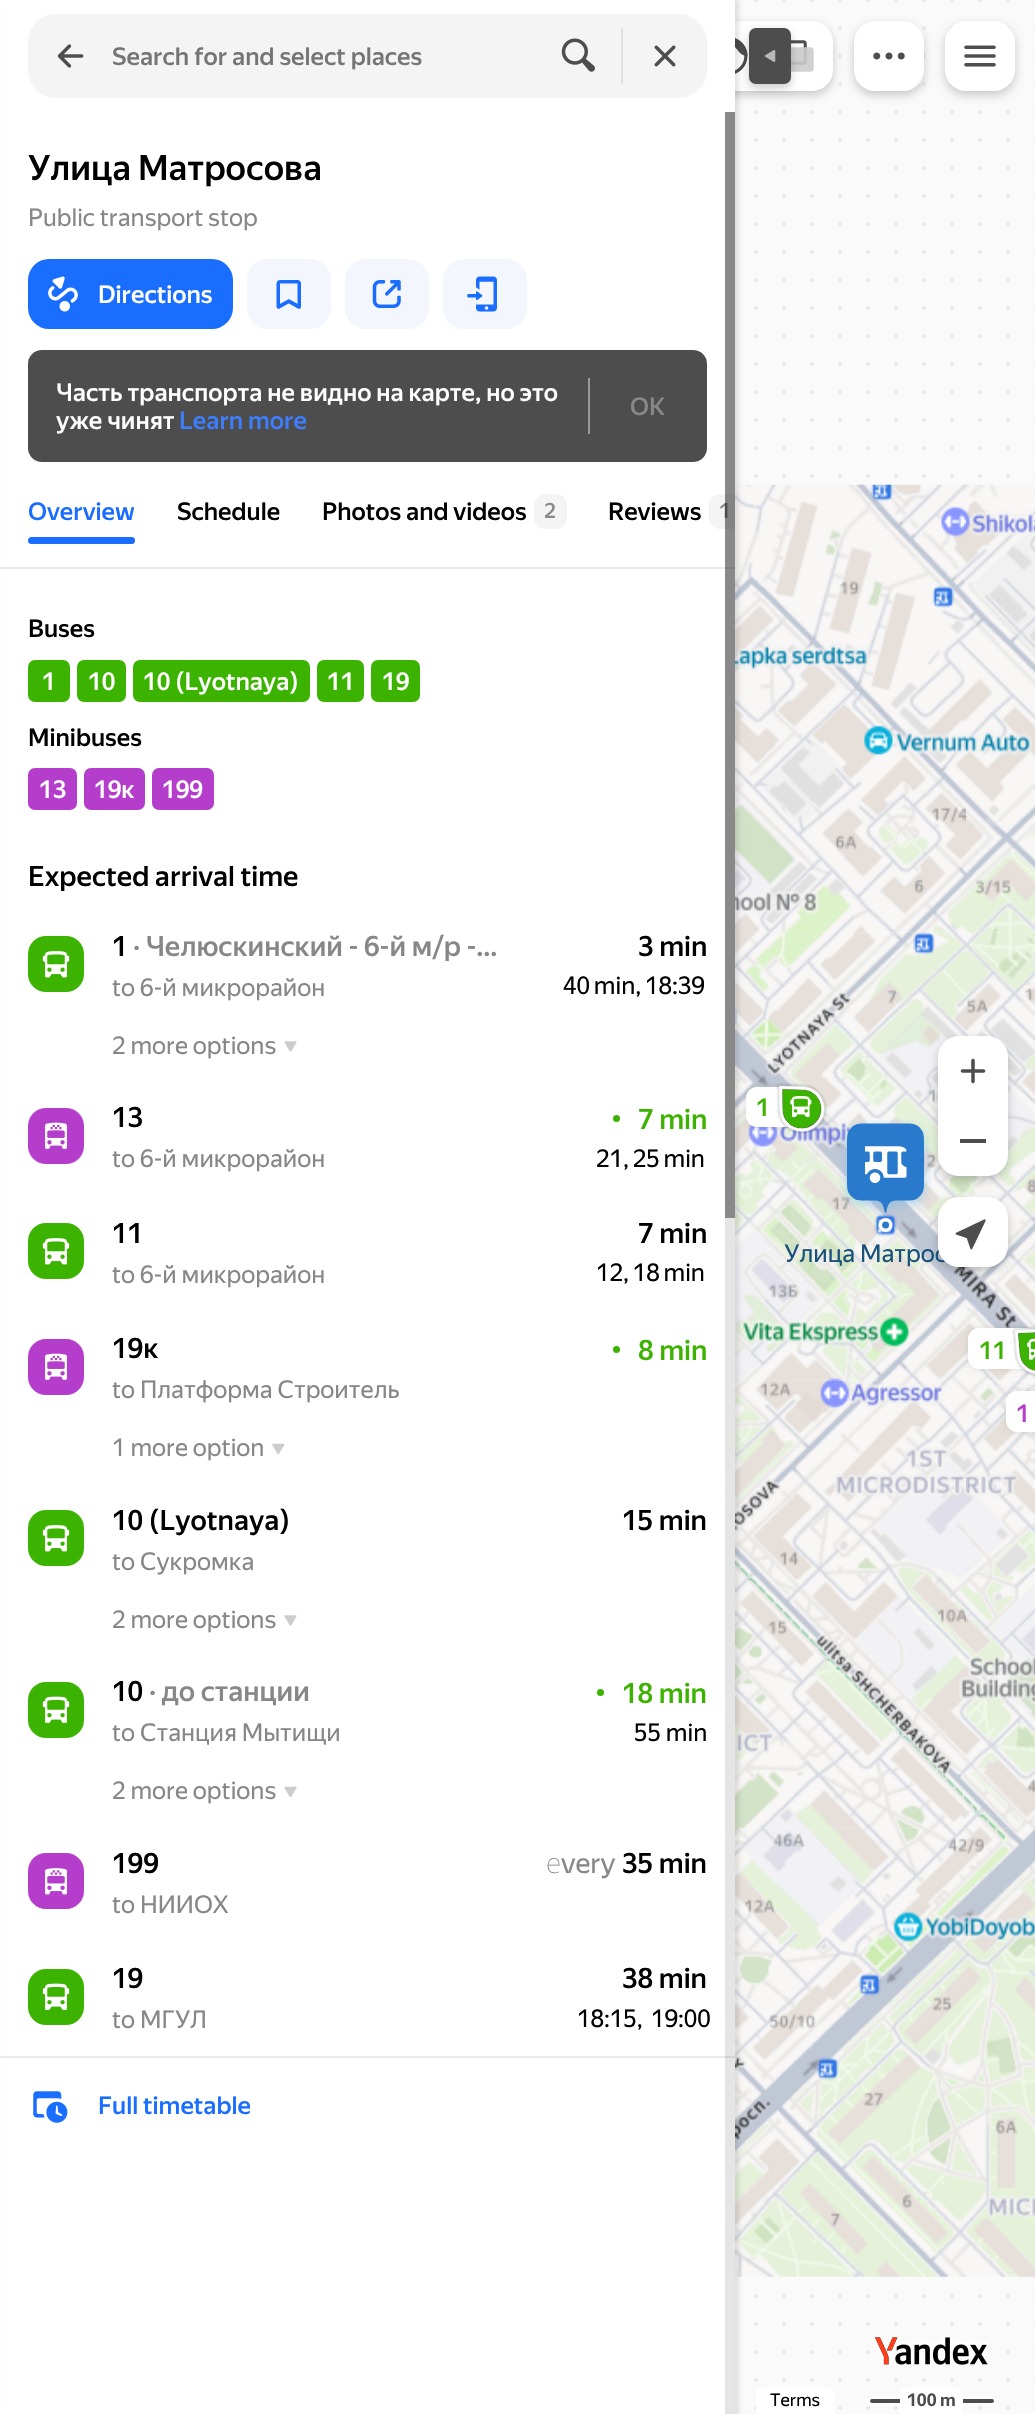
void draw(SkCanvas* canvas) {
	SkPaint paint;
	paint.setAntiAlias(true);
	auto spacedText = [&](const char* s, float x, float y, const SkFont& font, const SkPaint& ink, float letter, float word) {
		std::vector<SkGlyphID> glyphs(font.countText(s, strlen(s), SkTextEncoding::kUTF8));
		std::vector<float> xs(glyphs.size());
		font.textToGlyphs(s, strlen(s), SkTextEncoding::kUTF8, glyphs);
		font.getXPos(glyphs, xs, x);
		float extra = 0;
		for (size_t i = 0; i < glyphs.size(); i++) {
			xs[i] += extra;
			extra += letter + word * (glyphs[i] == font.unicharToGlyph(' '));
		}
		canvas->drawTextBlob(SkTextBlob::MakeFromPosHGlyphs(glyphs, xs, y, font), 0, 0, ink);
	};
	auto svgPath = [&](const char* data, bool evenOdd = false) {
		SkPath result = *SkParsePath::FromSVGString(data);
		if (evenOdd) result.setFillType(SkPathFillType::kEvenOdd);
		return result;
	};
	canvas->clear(0xffffffff);
	canvas->drawImageRect(SkImages::DeferredFromEncodedData(SkData::MakeFromFileName("img1.png")), SkRect::MakeXYWH(735, 0, 300, 2414), SkSamplingOptions());
	paint.setColor(0x33000000);
	paint.setMaskFilter(SkMaskFilter::MakeBlur(kNormal_SkBlurStyle, 5));
	canvas->drawRoundRect(SkRect::MakeXYWH(693, 25, 140, 70), 21, 21, paint);
	paint.setMaskFilter(nullptr);
	paint.setColor(0xffffffff);
	canvas->drawRect(SkRect::MakeXYWH(735, 21, 28, 70), paint);
	canvas->drawImageRect(SkImages::DeferredFromEncodedData(SkData::MakeFromFileName("img5.png")), SkRect::MakeXYWH(735, 38, 13, 36), SkSamplingOptions());
	canvas->drawImageRect(SkImages::DeferredFromEncodedData(SkData::MakeFromFileName("img25.png")), SkRect::MakeXYWH(735, 484, 231, 449), SkSamplingOptions());
	canvas->drawImageRect(SkImages::DeferredFromEncodedData(SkData::MakeFromFileName("img27.png")), SkRect::MakeXYWH(735, 932, 231, 449), SkSamplingOptions());
	canvas->drawImageRect(SkImages::DeferredFromEncodedData(SkData::MakeFromFileName("img29.png")), SkRect::MakeXYWH(735, 1380, 231, 449), SkSamplingOptions());
	canvas->drawImageRect(SkImages::DeferredFromEncodedData(SkData::MakeFromFileName("img31.png")), SkRect::MakeXYWH(735, 1828, 231, 449), SkSamplingOptions());
	paint.setColor(0x1a000000);
	paint.setMaskFilter(SkMaskFilter::MakeBlur(kNormal_SkBlurStyle, 2));
	canvas->drawRect(SkRect::MakeXYWH(4, 0, 735, 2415), paint);
	paint.setMaskFilter(nullptr);
	paint.setColor(0xffffffff);
	canvas->drawPath(svgPath("M763 21H812C823.5 21 833 30.5 833 42V70C833 81.5 823.5 91 812 91H763Z"), paint);
	canvas->drawImageRect(SkImages::DeferredFromEncodedData(SkData::MakeFromFileName("img6.png")), SkRect::MakeXYWH(791, 40, 23, 32), SkSamplingOptions());
	paint.setColor(0x33000000);
	paint.setMaskFilter(SkMaskFilter::MakeBlur(kNormal_SkBlurStyle, 5));
	canvas->drawRoundRect(SkRect::MakeXYWH(749, 32, 42, 56), 7, 7, paint);
	paint.setMaskFilter(nullptr);
	paint.setColor(0x1a000000);
	paint.setMaskFilter(SkMaskFilter::MakeBlur(kNormal_SkBlurStyle, 3.5));
	canvas->drawRoundRect(SkRect::MakeXYWH(746, 1087, 56, 40), 11, 11, paint);
	paint.setMaskFilter(nullptr);
	paint.setColor(0xffffffff);
	canvas->drawRect(SkRect::MakeXYWH(1, 0, 734, 2414), paint);
	paint.setColor(0xfff4f4f4);
	canvas->drawRoundRect(SkRect::MakeXYWH(28, 14, 679, 84), 28, 28, paint);
	canvas->drawImageRect(SkImages::DeferredFromEncodedData(SkData::MakeFromFileName("img2.png")), SkRect::MakeXYWH(57, 44, 27, 24), SkSamplingOptions());
	SkFont f1(fontMgr->matchFamilyStyle("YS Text", SkFontStyle(500, SkFontStyle::kNormal_Width, SkFontStyle::kUpright_Slant)), 24.5);
	f1.setSubpixel(true);
	paint.setColor(0xff757575);
	canvas->drawString("Search for and select places", 112, 65, f1, paint);
	canvas->drawImageRect(SkImages::DeferredFromEncodedData(SkData::MakeFromFileName("img3.png")), SkRect::MakeXYWH(561, 38, 34, 34), SkSamplingOptions());
	paint.setColor(0xffe0e0e0);
	canvas->drawRect(SkRect::MakeXYWH(621, 28, 2, 56), paint);
	canvas->drawImageRect(SkImages::DeferredFromEncodedData(SkData::MakeFromFileName("img4.png")), SkRect::MakeXYWH(654, 45, 22, 22), SkSamplingOptions());
	paint.setColor(0x33000000);
	paint.setMaskFilter(SkMaskFilter::MakeBlur(kNormal_SkBlurStyle, 5));
	canvas->drawRoundRect(SkRect::MakeXYWH(854, 25, 70, 70), 21, 21, paint);
	paint.setMaskFilter(nullptr);
	paint.setColor(0xffffffff);
	canvas->drawRoundRect(SkRect::MakeXYWH(854, 21, 70, 70), 21, 21, paint);
	canvas->drawImageRect(SkImages::DeferredFromEncodedData(SkData::MakeFromFileName("img7.png")), SkRect::MakeXYWH(873, 52, 32, 8), SkSamplingOptions());
	paint.setColor(0x33000000);
	paint.setMaskFilter(SkMaskFilter::MakeBlur(kNormal_SkBlurStyle, 5));
	canvas->drawRoundRect(SkRect::MakeXYWH(945, 25, 70, 70), 21, 21, paint);
	paint.setMaskFilter(nullptr);
	paint.setColor(0xffffffff);
	canvas->drawRoundRect(SkRect::MakeXYWH(945, 21, 70, 70), 21, 21, paint);
	canvas->drawImageRect(SkImages::DeferredFromEncodedData(SkData::MakeFromFileName("img8.png")), SkRect::MakeXYWH(964, 45, 32, 22), SkSamplingOptions());
	canvas->drawImageRect(SkImages::DeferredFromEncodedData(SkData::MakeFromFileName("img26.png")), SkRect::MakeXYWH(966, 484, 69, 449), SkSamplingOptions());
	canvas->drawImageRect(SkImages::DeferredFromEncodedData(SkData::MakeFromFileName("img28.png")), SkRect::MakeXYWH(966, 932, 69, 449), SkSamplingOptions());
	canvas->drawImageRect(SkImages::DeferredFromEncodedData(SkData::MakeFromFileName("img35.png")), SkRect::MakeXYWH(839, 1119, 93, 113), SkSamplingOptions());
	paint.setColor(0x33000000);
	paint.setMaskFilter(SkMaskFilter::MakeBlur(kNormal_SkBlurStyle, 5));
	canvas->drawRoundRect(SkRect::MakeXYWH(938, 1040, 70, 140), 21, 21, paint);
	paint.setMaskFilter(nullptr);
	paint.setColor(0xffffffff);
	canvas->drawPath(svgPath("M959 1036H987C998.5 1036 1008 1045.5 1008 1057V1106H938V1057C938 1045.5 947.5 1036 959 1036Z"), paint);
	canvas->drawImageRect(SkImages::DeferredFromEncodedData(SkData::MakeFromFileName("img9.png")), SkRect::MakeXYWH(960, 1058, 26, 26), SkSamplingOptions());
	canvas->drawPath(svgPath("M938 1106H1008V1155C1008 1166.5 998.5 1176 987 1176H959C947.5 1176 938 1166.5 938 1155Z"), paint);
	paint.setColor(0xff4d4d4d);
	canvas->drawRect(SkRect::MakeXYWH(960, 1139, 26, 4), paint);
	paint.setColor(0x33000000);
	paint.setMaskFilter(SkMaskFilter::MakeBlur(kNormal_SkBlurStyle, 5));
	canvas->drawRoundRect(SkRect::MakeXYWH(938, 1201, 70, 70), 21, 21, paint);
	paint.setMaskFilter(nullptr);
	SkFont f2(fontMgr->matchFamilyStyle("YS Text", SkFontStyle::Normal()), 24.5);
	f2.setSubpixel(true);
	paint.setColor(0xff175078);
	canvas->drawString("Улица Матрос", 784, 1262, f2, paint);
	paint.setColor(0xffffffff);
	canvas->drawRoundRect(SkRect::MakeXYWH(938, 1197, 70, 70), 21, 21, paint);
	canvas->drawImageRect(SkImages::DeferredFromEncodedData(SkData::MakeFromFileName("img10.png")), SkRect::MakeXYWH(955, 1219, 31, 31), SkSamplingOptions());
	paint.setColor(0xff4d4d4d);
	canvas->drawRoundRect(SkRect::MakeXYWH(749, 28, 42, 56), 7, 7, paint);
	canvas->drawImageRect(SkImages::DeferredFromEncodedData(SkData::MakeFromFileName("img11.png")), SkRect::MakeXYWH(764, 49, 12, 14), SkSamplingOptions());
	SkFont f3(fontMgr->matchFamilyStyle("YS Text", SkFontStyle(500, SkFontStyle::kNormal_Width, SkFontStyle::kUpright_Slant)), 35);
	f3.setSubpixel(true);
	paint.setColor(0xff000000);
	canvas->drawString("Улица Матросова", 28, 180, f3, paint);
	paint.setColor(0xff878787);
	canvas->drawString("Public transport stop", 28, 226, f2, paint);
	paint.setColor(0xff196dff);
	canvas->drawRoundRect(SkRect::MakeXYWH(28, 259, 205, 70), 21, 21, paint);
	canvas->drawImageRect(SkImages::DeferredFromEncodedData(SkData::MakeFromFileName("img12.png")), SkRect::MakeXYWH(48, 276, 30, 36), SkSamplingOptions());
	paint.setColor(0xffffffff);
	canvas->drawString("Directions", 98, 303, f1, paint);
	paint.setColor(0xfff3f6fc);
	canvas->drawRoundRect(SkRect::MakeXYWH(247, 259, 84, 70), 21, 21, paint);
	canvas->drawImageRect(SkImages::DeferredFromEncodedData(SkData::MakeFromFileName("img13.png")), SkRect::MakeXYWH(276, 280, 25, 29), SkSamplingOptions());
	canvas->drawRoundRect(SkRect::MakeXYWH(345, 259, 84, 70), 21, 21, paint);
	canvas->drawImageRect(SkImages::DeferredFromEncodedData(SkData::MakeFromFileName("img14.png")), SkRect::MakeXYWH(372, 280, 29, 28), SkSamplingOptions());
	canvas->drawRoundRect(SkRect::MakeXYWH(443, 259, 84, 70), 21, 21, paint);
	canvas->drawImageRect(SkImages::DeferredFromEncodedData(SkData::MakeFromFileName("img15.png")), SkRect::MakeXYWH(467, 276, 30, 36), SkSamplingOptions());
	paint.setColor(0xff4d4d4d);
	canvas->drawRoundRect(SkRect::MakeXYWH(28, 350, 679, 112), 14, 14, paint);
	paint.setColor(0xffffffff);
	canvas->drawString("Часть транспорта не видно на карте, но это", 56, 401, f1, paint);
	canvas->drawString("уже чинят", 56, 429, f1, paint);
	paint.setColor(0xff3d7eff);
	canvas->drawString("Learn more", 179, 429, f1, paint);
	paint.setColor(0xff999999);
	canvas->drawRect(SkRect::MakeXYWH(588, 378, 2, 56), paint);
	paint.setColor(0xff878787);
	canvas->drawString("OK", 630, 415, f1, paint);
	paint.setColor(0xff196dff);
	canvas->drawString("Overview", 28, 520, f1, paint);
	paint.setColor(0xff000000);
	canvas->drawString("Schedule", 177, 520, f1, paint);
	canvas->drawString("Photos and videos", 322, 520, f1, paint);
	paint.setColor(0xfff4f4f4);
	canvas->drawRoundRect(SkRect::MakeXYWH(534, 494, 33, 35), 11, 11, paint);
	SkFont f4(fontMgr->matchFamilyStyle("YS Text", SkFontStyle(500, SkFontStyle::kNormal_Width, SkFontStyle::kUpright_Slant)), 21);
	f4.setSubpixel(true);
	paint.setColor(0xff878787);
	canvas->drawString("2", 544, 518, f4, paint);
	paint.setColor(0xff000000);
	canvas->drawString("Reviews", 608, 520, f1, paint);
	canvas->save();
	canvas->clipRect(SkRect::MakeXYWH(0, 462, 735, 98));
	paint.setColor(0xfff4f4f4);
	canvas->drawRoundRect(SkRect::MakeXYWH(709, 494, 33, 35), 11, 11, paint);
	canvas->restore();
	paint.setColor(0xff878787);
	canvas->drawString("1", 719, 518, f4, paint);
	paint.setColor(0xff196dff);
	canvas->drawRoundRect(SkRect::MakeXYWH(28, 537, 107, 7), 3.5, 3.5, paint);
	paint.setColor(0xffebebeb);
	canvas->drawRect(SkRect::MakeXYWH(0, 567, 735, 2), paint);
	paint.setColor(0xff000000);
	canvas->drawString("Buses", 28, 637, f1, paint);
	paint.setColor(0xff3bb300);
	canvas->drawRoundRect(SkRect::MakeXYWH(28, 660, 42, 42), 7, 7, paint);
	paint.setColor(0xffffffff);
	canvas->drawString("1", 42, 690, f1, paint);
	paint.setColor(0xff3bb300);
	canvas->drawRoundRect(SkRect::MakeXYWH(77, 660, 49, 42), 7, 7, paint);
	paint.setColor(0xffffffff);
	canvas->drawString("10", 88, 690, f1, paint);
	paint.setColor(0xff3bb300);
	canvas->drawRoundRect(SkRect::MakeXYWH(133, 660, 177, 42), 7, 7, paint);
	paint.setColor(0xffffffff);
	canvas->drawString("10 (Lyotnaya)", 143, 690, f1, paint);
	paint.setColor(0xff3bb300);
	canvas->drawRoundRect(SkRect::MakeXYWH(317, 660, 47, 42), 7, 7, paint);
	paint.setColor(0xffffffff);
	canvas->drawString("11", 327, 690, f1, paint);
	paint.setColor(0xff3bb300);
	canvas->drawRoundRect(SkRect::MakeXYWH(371, 660, 49, 42), 7, 7, paint);
	paint.setColor(0xffffffff);
	canvas->drawString("19", 382, 690, f1, paint);
	paint.setColor(0xff000000);
	canvas->drawString("Minibuses", 28, 746, f1, paint);
	paint.setColor(0xffb43dcc);
	canvas->drawRoundRect(SkRect::MakeXYWH(28, 768, 49, 42), 7, 7, paint);
	paint.setColor(0xffffffff);
	canvas->drawString("13", 39, 798, f1, paint);
	paint.setColor(0xffb43dcc);
	canvas->drawRoundRect(SkRect::MakeXYWH(84, 768, 61, 42), 7, 7, paint);
	paint.setColor(0xffffffff);
	canvas->drawString("19к", 94, 798, f1, paint);
	paint.setColor(0xffb43dcc);
	canvas->drawRoundRect(SkRect::MakeXYWH(152, 768, 62, 42), 7, 7, paint);
	paint.setColor(0xffffffff);
	canvas->drawString("199", 162, 798, f1, paint);
	SkFont f5(fontMgr->matchFamilyStyle("YS Text", SkFontStyle(500, SkFontStyle::kNormal_Width, SkFontStyle::kUpright_Slant)), 28);
	f5.setSubpixel(true);
	paint.setColor(0xff000000);
	canvas->drawString("Expected arrival time", 28, 886, f5, paint);
	paint.setColor(0xff3bb300);
	canvas->drawRoundRect(SkRect::MakeXYWH(28, 936, 56, 56), 18, 18, paint);
	canvas->drawImageRect(SkImages::DeferredFromEncodedData(SkData::MakeFromFileName("img16.png")), SkRect::MakeXYWH(42, 951, 28, 27), SkSamplingOptions());
	paint.setColor(0xff000000);
	canvas->drawString("1", 112, 956, f5, paint);
	paint.setColor(0xff878787);
	canvas->drawString("· Челюскинский - 6-й м/р -…", 133, 956, f5, paint);
	canvas->drawString("to 6-й микрорайон", 112, 996, f2, paint);
	paint.setColor(0xff000000);
	canvas->drawString("3 min", 638, 956, f5, paint);
	spacedText("40 min, 18:39", 563, 994, f2, paint, 0, -1);
	paint.setColor(0xff878787);
	canvas->drawString("2 more options", 112, 1054, f2, paint);
	canvas->drawImageRect(SkImages::DeferredFromEncodedData(SkData::MakeFromFileName("img17.png")), SkRect::MakeXYWH(284, 1041, 13, 11), SkSamplingOptions());
	paint.setColor(0xffb43dcc);
	canvas->drawRoundRect(SkRect::MakeXYWH(28, 1108, 56, 56), 18, 18, paint);
	canvas->drawImageRect(SkImages::DeferredFromEncodedData(SkData::MakeFromFileName("img18.png")), SkRect::MakeXYWH(45, 1122, 22, 27), SkSamplingOptions());
	paint.setColor(0xff000000);
	canvas->drawString("13", 112, 1127, f5, paint);
	paint.setColor(0xff878787);
	canvas->drawString("to 6-й микрорайон", 112, 1167, f2, paint);
	paint.setColor(0xff3bb300);
	canvas->drawCircle(616.5, 1118.5, 3.5, paint);
	canvas->drawString("7 min", 638, 1129, f5, paint);
	paint.setColor(0xff000000);
	spacedText("21, 25 min", 596, 1167, f2, paint, 0, -1);
	paint.setColor(0xff3bb300);
	canvas->drawRoundRect(SkRect::MakeXYWH(28, 1223, 56, 56), 18, 18, paint);
	canvas->drawImageRect(SkImages::DeferredFromEncodedData(SkData::MakeFromFileName("img16.png")), SkRect::MakeXYWH(42, 1238, 28, 27), SkSamplingOptions());
	paint.setColor(0xff000000);
	canvas->drawString("11", 112, 1243, f5, paint);
	paint.setColor(0xff878787);
	canvas->drawString("to 6-й микрорайон", 112, 1283, f2, paint);
	paint.setColor(0xff000000);
	canvas->drawString("7 min", 638, 1243, f5, paint);
	spacedText("12, 18 min", 596, 1281, f2, paint, 0, -1);
	paint.setColor(0xffb43dcc);
	canvas->drawRoundRect(SkRect::MakeXYWH(28, 1339, 56, 56), 18, 18, paint);
	canvas->drawImageRect(SkImages::DeferredFromEncodedData(SkData::MakeFromFileName("img18.png")), SkRect::MakeXYWH(45, 1353, 22, 27), SkSamplingOptions());
	paint.setColor(0xff000000);
	canvas->drawString("19к", 112, 1358, f5, paint);
	paint.setColor(0xff878787);
	canvas->drawString("to Платформа Строитель", 112, 1398, f2, paint);
	paint.setColor(0xff3bb300);
	canvas->drawCircle(616.5, 1349.5, 3.5, paint);
	canvas->drawString("8 min", 638, 1360, f5, paint);
	paint.setColor(0xff878787);
	canvas->drawString("1 more option", 112, 1456, f2, paint);
	canvas->drawImageRect(SkImages::DeferredFromEncodedData(SkData::MakeFromFileName("img19.png")), SkRect::MakeXYWH(272, 1443, 13, 12), SkSamplingOptions());
	paint.setColor(0xff3bb300);
	canvas->drawRoundRect(SkRect::MakeXYWH(28, 1510, 56, 56), 18, 18, paint);
	canvas->drawImageRect(SkImages::DeferredFromEncodedData(SkData::MakeFromFileName("img16.png")), SkRect::MakeXYWH(42, 1525, 28, 27), SkSamplingOptions());
	paint.setColor(0xff000000);
	canvas->drawString("10 (Lyotnaya)", 112, 1530, f5, paint);
	paint.setColor(0xff878787);
	canvas->drawString("to Сукромка", 112, 1570, f2, paint);
	paint.setColor(0xff000000);
	canvas->drawString("15 min", 622, 1530, f5, paint);
	paint.setColor(0xff878787);
	canvas->drawString("2 more options", 112, 1628, f2, paint);
	canvas->drawImageRect(SkImages::DeferredFromEncodedData(SkData::MakeFromFileName("img17.png")), SkRect::MakeXYWH(284, 1615, 13, 11), SkSamplingOptions());
	paint.setColor(0xff3bb300);
	canvas->drawRoundRect(SkRect::MakeXYWH(28, 1682, 56, 56), 18, 18, paint);
	canvas->drawImageRect(SkImages::DeferredFromEncodedData(SkData::MakeFromFileName("img20.png")), SkRect::MakeXYWH(42, 1696, 28, 27), SkSamplingOptions());
	paint.setColor(0xff000000);
	canvas->drawString("10", 112, 1701, f5, paint);
	paint.setColor(0xff878787);
	canvas->drawString("· до станции", 149, 1701, f5, paint);
	canvas->drawString("to Станция Мытищи", 112, 1741, f2, paint);
	paint.setColor(0xff3bb300);
	canvas->drawCircle(600.5, 1692.5, 3.5, paint);
	canvas->drawString("18 min", 622, 1703, f5, paint);
	paint.setColor(0xff000000);
	canvas->drawString("55 min", 634, 1741, f2, paint);
	paint.setColor(0xff878787);
	canvas->drawString("2 more options", 112, 1799, f2, paint);
	canvas->drawImageRect(SkImages::DeferredFromEncodedData(SkData::MakeFromFileName("img21.png")), SkRect::MakeXYWH(284, 1786, 13, 12), SkSamplingOptions());
	paint.setColor(0xffb43dcc);
	canvas->drawRoundRect(SkRect::MakeXYWH(28, 1853, 56, 56), 18, 18, paint);
	canvas->drawImageRect(SkImages::DeferredFromEncodedData(SkData::MakeFromFileName("img22.png")), SkRect::MakeXYWH(45, 1868, 22, 27), SkSamplingOptions());
	paint.setColor(0xff000000);
	canvas->drawString("199", 112, 1873, f5, paint);
	paint.setColor(0xff878787);
	canvas->drawString("to НИИОХ", 112, 1913, f2, paint);
	SkFont f6(fontMgr->matchFamilyStyle("Noto Sans", SkFontStyle(100, SkFontStyle::kNormal_Width, SkFontStyle::kUpright_Slant)), 28);
	f6.setSubpixel(true);
	canvas->drawString("e", 546, 1873, f6, paint);
	SkFont f7(fontMgr->matchFamilyStyle("YS Text", SkFontStyle::Normal()), 28);
	f7.setSubpixel(true);
	canvas->drawString("very", 561, 1873, f7, paint);
	paint.setColor(0xff000000);
	canvas->drawString("35 min", 622, 1873, f5, paint);
	paint.setColor(0xff3bb300);
	canvas->drawRoundRect(SkRect::MakeXYWH(28, 1969, 56, 56), 18, 18, paint);
	canvas->drawImageRect(SkImages::DeferredFromEncodedData(SkData::MakeFromFileName("img20.png")), SkRect::MakeXYWH(42, 1983, 28, 27), SkSamplingOptions());
	paint.setColor(0xff000000);
	canvas->drawString("19", 112, 1988, f5, paint);
	paint.setColor(0xff878787);
	canvas->drawString("to МГУЛ", 112, 2028, f2, paint);
	paint.setColor(0xff000000);
	canvas->drawString("38 min", 622, 1988, f5, paint);
	spacedText("18:15,", 577, 2027, f2, paint, 0, -1);
	spacedText("19:00", 651, 2027, f2, paint, 0, -1);
	paint.setColor(0xffebebeb);
	canvas->drawRect(SkRect::MakeXYWH(0, 2056, 735, 2), paint);
	canvas->drawImageRect(SkImages::DeferredFromEncodedData(SkData::MakeFromFileName("img23.png")), SkRect::MakeXYWH(33, 2091, 35, 32), SkSamplingOptions());
	paint.setColor(0xff196dff);
	canvas->drawString("Full timetable", 98, 2114, f1, paint);
	paint.setColor(0x1a000000);
	canvas->drawRect(SkRect::MakeXYWH(725, 112, 10, 2302), paint);
	paint.setColor(0x66000000);
	canvas->drawRect(SkRect::MakeXYWH(725, 112, 10, 1106), paint);
	canvas->drawImageRect(SkImages::DeferredFromEncodedData(SkData::MakeFromFileName("img24.png")), SkRect::MakeXYWH(875, 2337, 113, 28), SkSamplingOptions());
	paint.setColor(0xffffffff);
	canvas->drawPath(svgPath("M763 2387H828C832 2387 835 2390 835 2394V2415H756V2394C756 2390 759 2387 763 2387Z"), paint);
	SkFont f8(fontMgr->matchFamilyStyle("YS Text", SkFontStyle::Normal()), 17.5);
	f8.setSubpixel(true);
	paint.setColor(0xff000000);
	canvas->drawString("Terms", 770, 2406, f8, paint);
	paint.setColor(0xfffdfdfd);
	canvas->drawRoundRect(SkRect::MakeXYWH(866, 2396, 132, 10), 5, 5, paint);
	paint.setColor(0xff4d4d4d);
	canvas->drawRoundRect(SkRect::MakeXYWH(870, 2399, 124, 4), 2, 2, paint);
	paint.setColor(0xffffffff);
	canvas->drawPath(svgPath("M907 2387H956C960 2387 963 2390 963 2394V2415H900V2394C900 2390 903 2387 907 2387Z"), paint);
	SkFont f9(fontMgr->matchFamilyStyle("YS Text", SkFontStyle::Bold()), 17.5);
	f9.setSubpixel(true);
	paint.setColor(0xff4d4d4d);
	canvas->drawString("100 m", 907, 2406, f9, paint);
	canvas->drawImageRect(SkImages::DeferredFromEncodedData(SkData::MakeFromFileName("img30.png")), SkRect::MakeXYWH(966, 1380, 69, 449), SkSamplingOptions());
	canvas->drawImageRect(SkImages::DeferredFromEncodedData(SkData::MakeFromFileName("img32.png")), SkRect::MakeXYWH(966, 1828, 69, 449), SkSamplingOptions());
	paint.setColor(0xffffffff);
	canvas->drawRoundRect(SkRect::MakeXYWH(746, 1087, 56, 40), 11, 11, paint);
	canvas->drawImageRect(SkImages::DeferredFromEncodedData(SkData::MakeFromFileName("img33.png")), SkRect::MakeXYWH(776, 1083, 51, 51), SkSamplingOptions());
	paint.setColor(0xff3bb300);
	canvas->drawString("1", 756, 1116, f1, paint);
	canvas->drawImageRect(SkImages::DeferredFromEncodedData(SkData::MakeFromFileName("img34.png")), SkRect::MakeXYWH(790, 1096, 22, 21), SkSamplingOptions());
	canvas->drawImageRect(SkImages::DeferredFromEncodedData(SkData::MakeFromFileName("img36.png")), SkRect::MakeXYWH(865, 1146, 42, 37), SkSamplingOptions());
	paint.setColor(0x1a000000);
	paint.setMaskFilter(SkMaskFilter::MakeBlur(kNormal_SkBlurStyle, 3.5));
	canvas->drawRoundRect(SkRect::MakeXYWH(968, 1328, 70, 41), 11, 11, paint);
	paint.setMaskFilter(nullptr);
	paint.setColor(0xffffffff);
	canvas->drawRoundRect(SkRect::MakeXYWH(968, 1328, 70, 41), 11, 11, paint);
	canvas->drawImageRect(SkImages::DeferredFromEncodedData(SkData::MakeFromFileName("img37.png")), SkRect::MakeXYWH(1012, 1326, 23, 50), SkSamplingOptions());
	paint.setColor(0xff3bb300);
	canvas->drawString("11", 979, 1359, f1, paint);
	canvas->drawImageRect(SkImages::DeferredFromEncodedData(SkData::MakeFromFileName("img38.png")), SkRect::MakeXYWH(1027, 1338, 8, 22), SkSamplingOptions());
	paint.setColor(0x1a000000);
	paint.setMaskFilter(SkMaskFilter::MakeBlur(kNormal_SkBlurStyle, 3.5));
	canvas->drawRoundRect(SkRect::MakeXYWH(1006, 1391, 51, 41), 11, 11, paint);
	paint.setMaskFilter(nullptr);
	paint.setColor(0xffffffff);
	canvas->drawPath(svgPath("M1017 1391H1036V1432H1017C1011 1432 1006 1427 1006 1421V1402C1006 1396 1011 1391 1017 1391Z"), paint);
	paint.setColor(0xffb43dcc);
	canvas->drawString("1", 1016, 1422, f1, paint);
}
